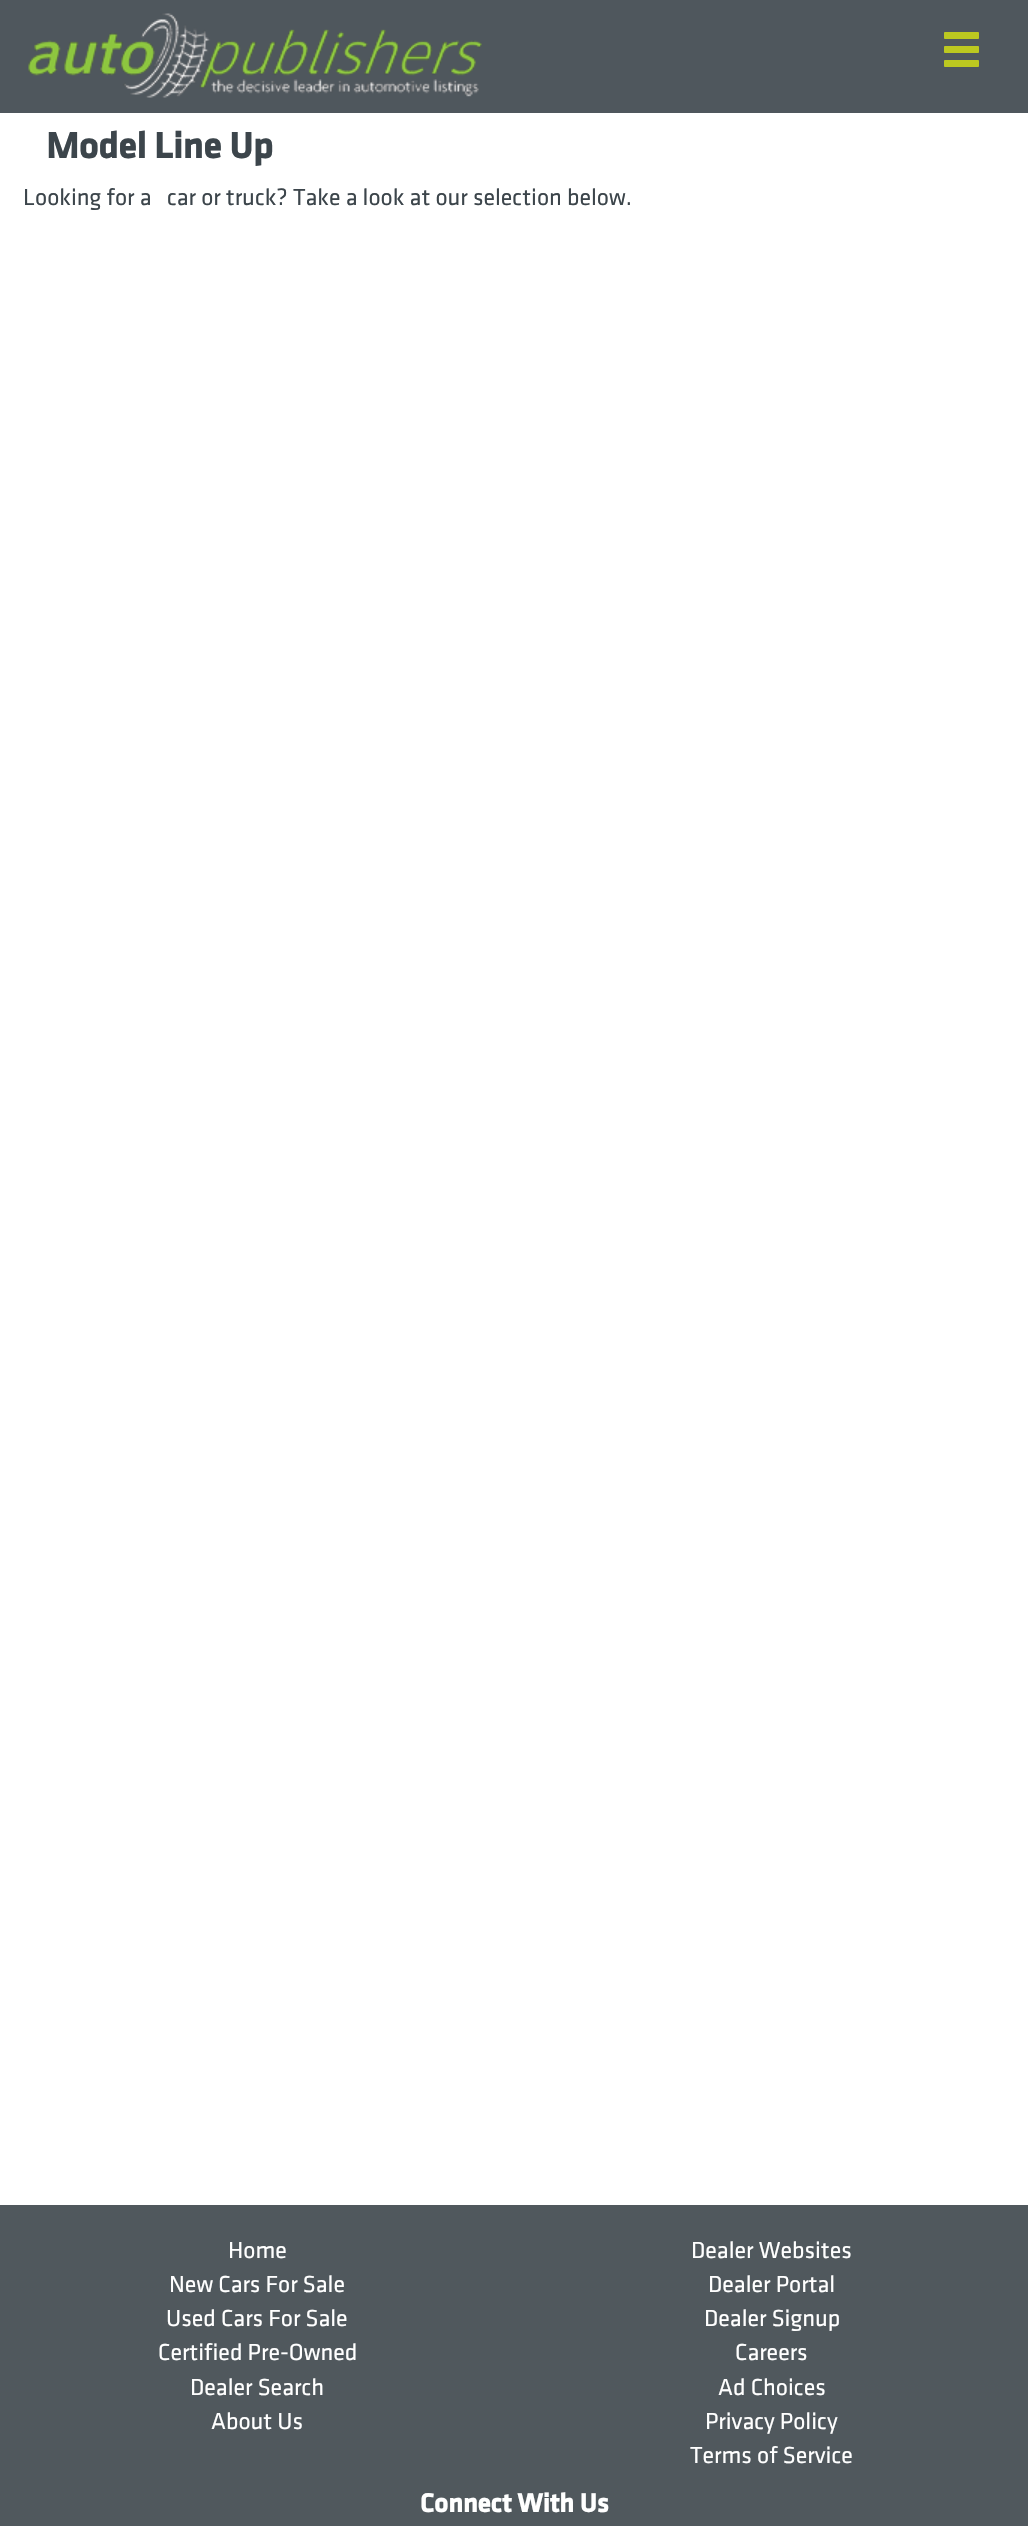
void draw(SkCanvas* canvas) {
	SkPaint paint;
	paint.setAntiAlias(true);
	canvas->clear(0xffffffff);
	paint.setColor(0xff4f575d);
	canvas->drawRect(SkRect::MakeXYWH(0, 0, 1028, 113), paint);
	canvas->drawImageRect(SkImages::DeferredFromEncodedData(SkData::MakeFromFileName("img1.png")), SkRect::MakeXYWH(28, 13, 454, 85), SkSamplingOptions());
	canvas->drawImageRect(SkImages::DeferredFromEncodedData(SkData::MakeFromFileName("img2.png")), SkRect::MakeXYWH(944, 32, 35, 35), SkSamplingOptions());
	SkFont f1(fontMgr->matchFamilyStyle("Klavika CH", SkFontStyle::Bold()), 37.5);
	f1.setSubpixel(true);
	paint.setColor(0xff3c454b);
	canvas->drawString("Model Line Up", 46, 158, f1, paint);
	SkFont f2(fontMgr->matchFamilyStyle("Klavika CH", SkFontStyle::Normal()), 24);
	f2.setSubpixel(true);
	canvas->drawString("Looking for a   car or truck? Take a look at our selection below.", 23, 205, f2, paint);
	paint.setColor(0xff50585d);
	canvas->drawRect(SkRect::MakeXYWH(0, 2205, 1028, 321), paint);
	paint.setColor(0xffffffff);
	canvas->drawString("Home", 228, 2258, f2, paint);
	canvas->drawString("New Cars For Sale", 169, 2292, f2, paint);
	canvas->drawString("Used Cars For Sale", 166, 2326, f2, paint);
	canvas->drawString("Certified Pre-Owned", 158, 2360, f2, paint);
	canvas->drawString("Dealer Search", 190, 2395, f2, paint);
	canvas->drawString("About Us", 211, 2429, f2, paint);
	canvas->drawString("Dealer Websites", 691, 2258, f2, paint);
	canvas->drawString("Dealer Portal", 708, 2292, f2, paint);
	canvas->drawString("Dealer Signup", 704, 2326, f2, paint);
	canvas->drawString("Careers", 735, 2360, f2, paint);
	canvas->drawString("Ad Choices", 718, 2395, f2, paint);
	canvas->drawString("Privacy Policy", 705, 2429, f2, paint);
	canvas->drawString("Terms of Service", 690, 2463, f2, paint);
	SkFont f3(fontMgr->matchFamilyStyle("Klavika CH", SkFontStyle::Bold()), 27);
	f3.setSubpixel(true);
	canvas->drawString("Connect With Us", 420, 2512, f3, paint);
}
